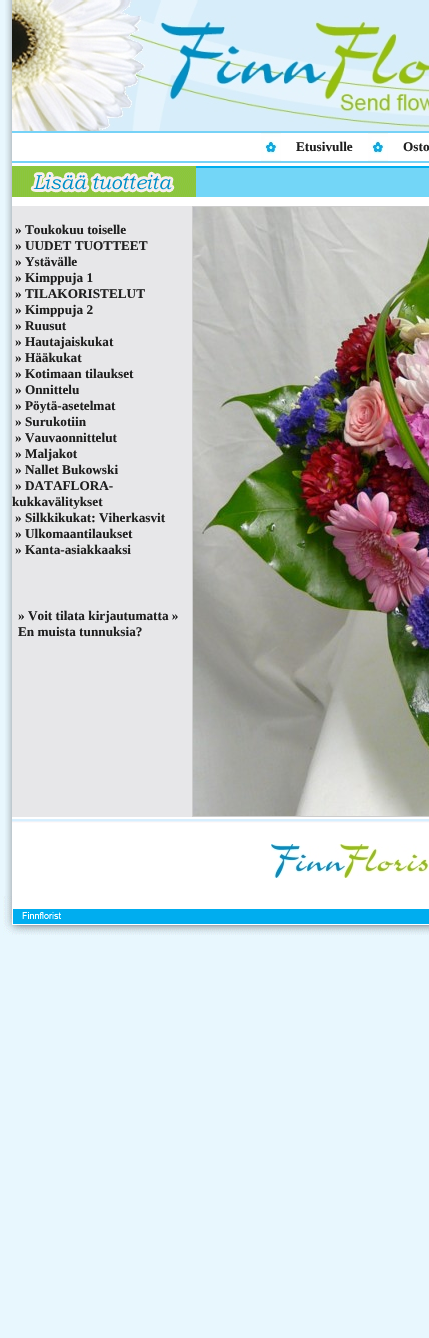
void draw(SkCanvas* canvas) {
	SkPaint paint;
	paint.setAntiAlias(true);
	canvas->clear(0xffe8f7fe);
	canvas->drawImageRect(SkImages::DeferredFromEncodedData(SkData::MakeFromFileName("img1.png")), SkRect::MakeXYWH(5, 0, 7, 896), SkSamplingOptions());
	canvas->drawImageRect(SkImages::DeferredFromEncodedData(SkData::MakeFromFileName("img2.png")), SkRect::MakeXYWH(12, 0, 417, 131), SkSamplingOptions());
	canvas->drawImageRect(SkImages::DeferredFromEncodedData(SkData::MakeFromFileName("img3.png")), SkRect::MakeXYWH(12, 131, 417, 32), SkSamplingOptions());
	canvas->drawImageRect(SkImages::DeferredFromEncodedData(SkData::MakeFromFileName("img4.png")), SkRect::MakeXYWH(261, 132, 20, 30), SkSamplingOptions());
	SkFont f1(fontMgr->matchFamilyStyle("Liberation Serif", SkFontStyle::Bold()), 13.25);
	f1.setSubpixel(true);
	paint.setColor(0xff1f1f1f);
	canvas->drawString("Etusivulle", 296, 151, f1, paint);
	canvas->drawImageRect(SkImages::DeferredFromEncodedData(SkData::MakeFromFileName("img4.png")), SkRect::MakeXYWH(368, 132, 20, 30), SkSamplingOptions());
	canvas->drawString("Osto", 403, 151, f1, paint);
	paint.setColor(0xffffffff);
	canvas->drawRect(SkRect::MakeXYWH(12, 163, 417, 3), paint);
	canvas->drawImageRect(SkImages::DeferredFromEncodedData(SkData::MakeFromFileName("img5.png")), SkRect::MakeXYWH(12, 166, 417, 40), SkSamplingOptions());
	paint.setColor(0xffe7e7e9);
	canvas->drawRect(SkRect::MakeXYWH(12, 206, 180, 611), paint);
	paint.setColor(0xff1f1f1f);
	canvas->drawString("» Toukokuu toiselle", 15, 234, f1, paint);
	canvas->drawString("» UUDET TUOTTEET", 15, 250, f1, paint);
	canvas->drawString("» Ystävälle", 15, 266, f1, paint);
	canvas->drawString("» Kimppuja 1", 15, 282, f1, paint);
	canvas->drawString("» TILAKORISTELUT", 15, 298, f1, paint);
	canvas->drawString("» Kimppuja 2", 15, 314, f1, paint);
	canvas->drawString("» Ruusut", 15, 330, f1, paint);
	canvas->drawString("» Hautajaiskukat", 15, 346, f1, paint);
	canvas->drawString("» Hääkukat", 15, 362, f1, paint);
	canvas->drawString("» Kotimaan tilaukset", 15, 378, f1, paint);
	canvas->drawString("» Onnittelu", 15, 394, f1, paint);
	canvas->drawString("» Pöytä-asetelmat", 15, 410, f1, paint);
	canvas->drawString("» Surukotiin", 15, 426, f1, paint);
	canvas->drawString("» Vauvaonnittelut", 15, 442, f1, paint);
	canvas->drawString("» Maljakot", 15, 458, f1, paint);
	canvas->drawString("» Nallet Bukowski", 15, 474, f1, paint);
	canvas->drawString("» DATAFLORA-", 15, 490, f1, paint);
	canvas->drawString("kukkavälitykset", 12, 506, f1, paint);
	canvas->drawString("» Silkkikukat: Viherkasvit", 15, 522, f1, paint);
	canvas->drawString("» Ulkomaantilaukset", 15, 538, f1, paint);
	canvas->drawString("» Kanta-asiakkaaksi", 15, 554, f1, paint);
	canvas->drawString("» Voit tilata kirjautumatta »", 18, 620, f1, paint);
	canvas->drawString("En muista tunnuksia?", 18, 636, f1, paint);
	paint.setColor(0xffcccccc);
	canvas->drawRect(SkRect::MakeXYWH(192, 206, 237, 1), paint);
	canvas->drawRect(SkRect::MakeXYWH(192, 816, 237, 1), paint);
	canvas->drawRect(SkRect::MakeXYWH(192, 206, 1, 611), paint);
	canvas->drawImageRect(SkImages::DeferredFromEncodedData(SkData::MakeFromFileName("img6.png")), SkRect::MakeXYWH(193, 207, 236, 609), SkSamplingOptions());
	paint.setColor(0xffffffff);
	canvas->drawRect(SkRect::MakeXYWH(12, 817, 417, 79), paint);
	canvas->drawImageRect(SkImages::DeferredFromEncodedData(SkData::MakeFromFileName("img7.png")), SkRect::MakeXYWH(12, 819, 417, 4), SkSamplingOptions());
	canvas->drawImageRect(SkImages::DeferredFromEncodedData(SkData::MakeFromFileName("img8.png")), SkRect::MakeXYWH(271, 844, 158, 34), SkSamplingOptions());
	canvas->drawImageRect(SkImages::DeferredFromEncodedData(SkData::MakeFromFileName("img9.png")), SkRect::MakeXYWH(2, 896, 427, 39), SkSamplingOptions());
}
